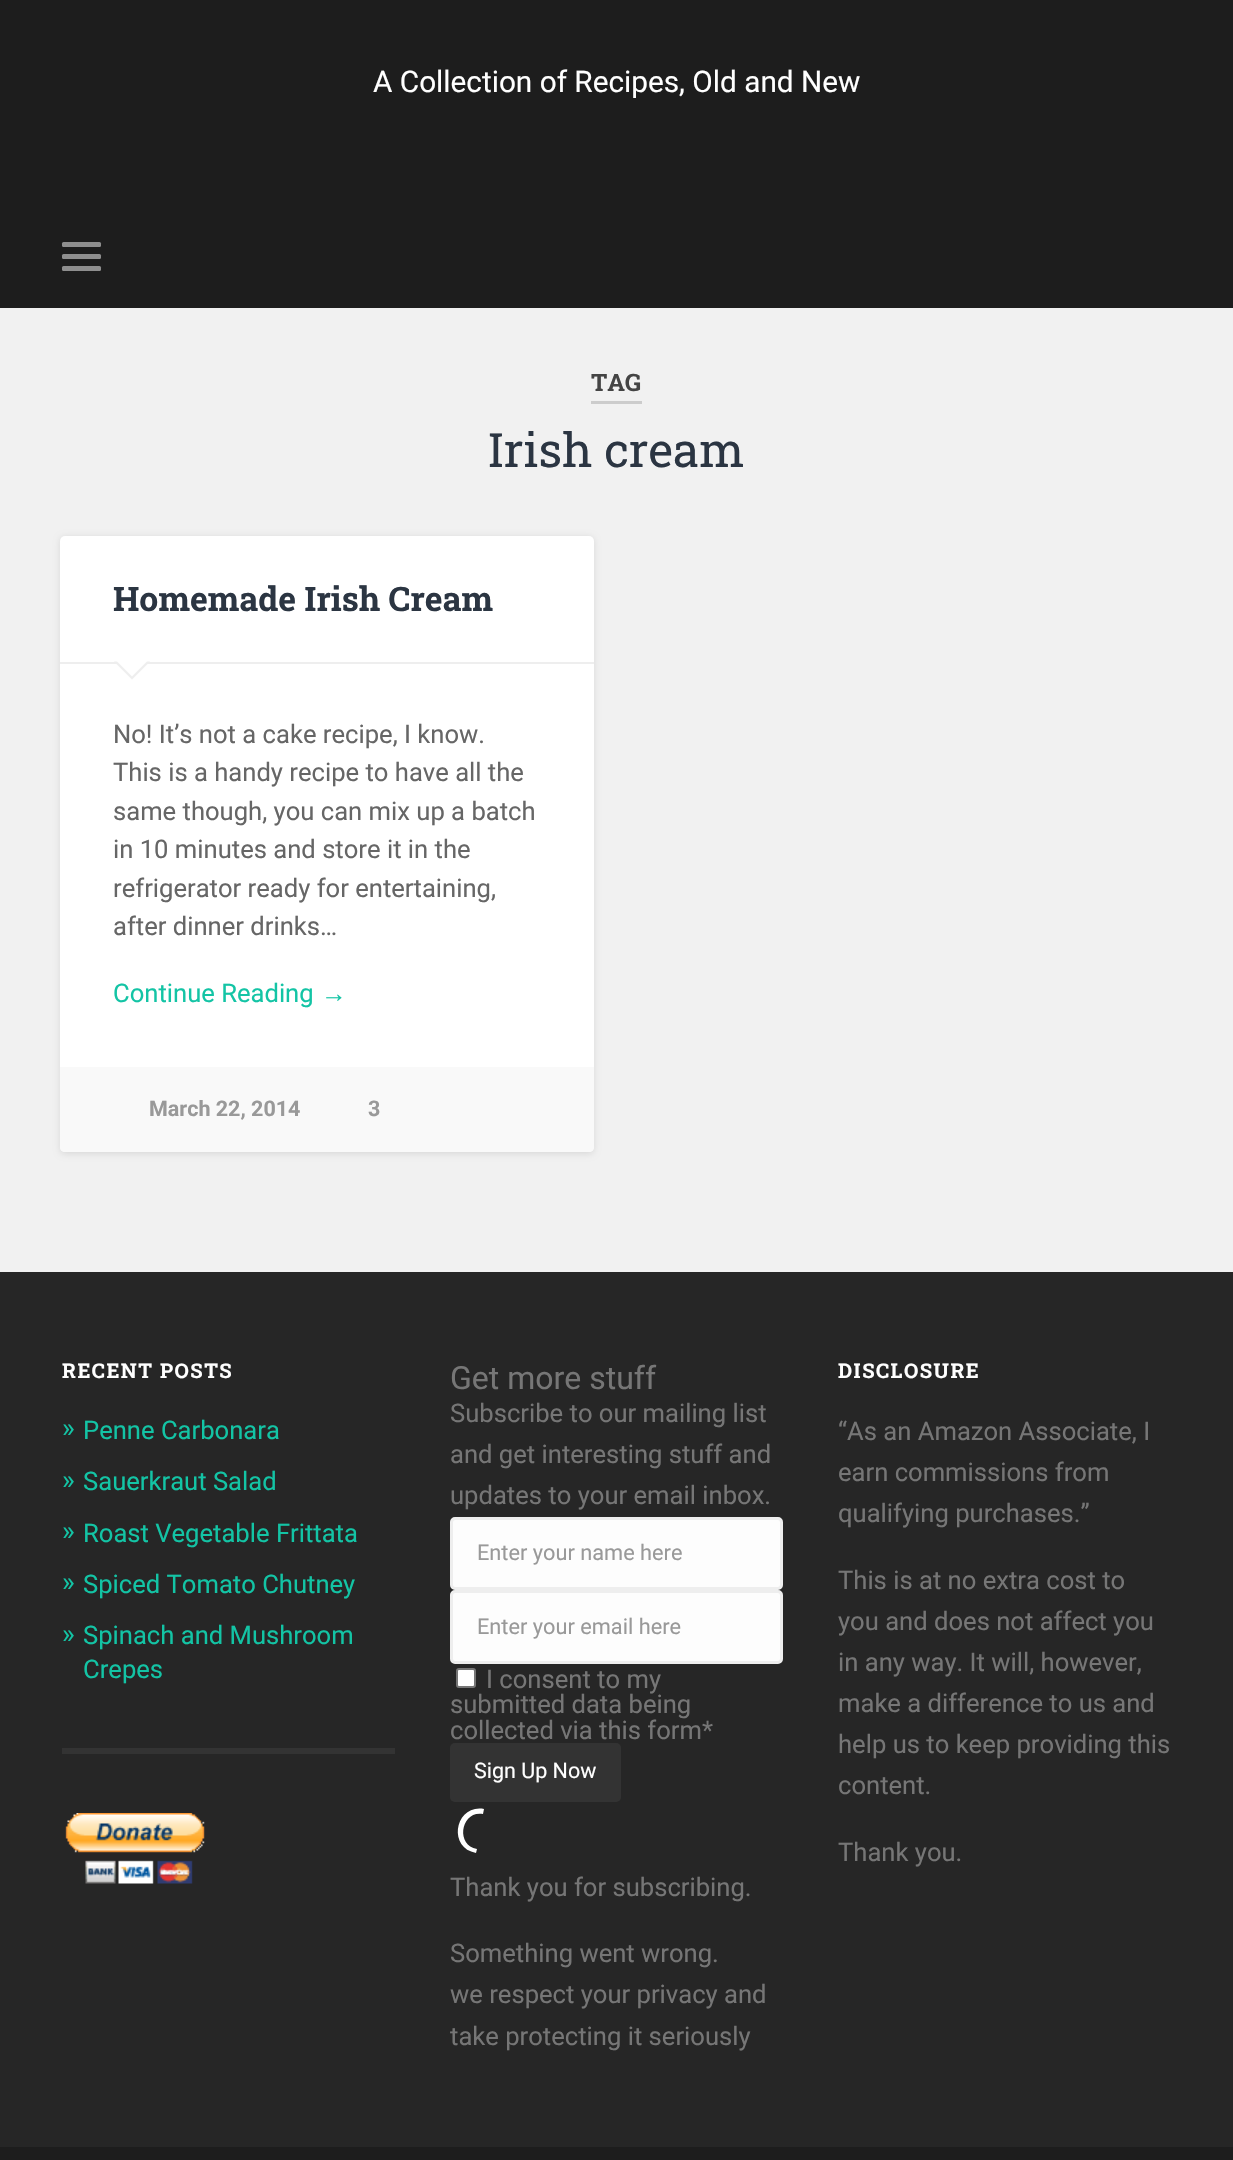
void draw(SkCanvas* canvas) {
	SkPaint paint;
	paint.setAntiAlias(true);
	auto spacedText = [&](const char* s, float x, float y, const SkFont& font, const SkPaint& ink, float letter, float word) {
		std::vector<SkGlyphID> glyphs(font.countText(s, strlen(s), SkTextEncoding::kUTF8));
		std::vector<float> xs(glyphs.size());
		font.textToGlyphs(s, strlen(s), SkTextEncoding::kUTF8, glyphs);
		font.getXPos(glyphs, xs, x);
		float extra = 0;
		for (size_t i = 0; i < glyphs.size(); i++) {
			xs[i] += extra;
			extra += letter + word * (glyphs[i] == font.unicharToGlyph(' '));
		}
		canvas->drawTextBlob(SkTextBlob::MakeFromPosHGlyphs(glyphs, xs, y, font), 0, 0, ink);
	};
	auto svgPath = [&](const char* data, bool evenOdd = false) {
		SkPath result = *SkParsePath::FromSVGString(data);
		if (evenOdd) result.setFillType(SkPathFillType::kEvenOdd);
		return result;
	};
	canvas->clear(0xfff1f1f1);
	paint.setColor(0xff1d1d1d);
	canvas->drawRect(SkRect::MakeXYWH(0, 0, 1233, 308), paint);
	SkFont f1(fontMgr->matchFamilyStyle("Roboto", SkFontStyle::Normal()), 29.75);
	f1.setSubpixel(true);
	paint.setColor(0xffffffff);
	canvas->drawString("A Collection of Recipes, Old and New", 373, 92, f1, paint);
	paint.setColor(0xff8e8e8e);
	canvas->drawRoundRect(SkRect::MakeXYWH(62, 242, 39, 5), 1.5, 1.5, paint);
	canvas->drawRoundRect(SkRect::MakeXYWH(62, 254, 39, 5), 1.5, 1.5, paint);
	canvas->drawRoundRect(SkRect::MakeXYWH(62, 266, 39, 5), 1.5, 1.5, paint);
	paint.setColor(0xffcccccc);
	canvas->drawRect(SkRect::MakeXYWH(591, 401, 51, 3), paint);
	SkFont f2(fontMgr->matchFamilyStyle("Roboto Slab", SkFontStyle::Bold()), 24);
	f2.setSubpixel(true);
	paint.setColor(0xff444444);
	canvas->drawString("TAG", 591, 391, f2, paint);
	SkFont f3(fontMgr->matchFamilyStyle("Roboto Slab", SkFontStyle::Normal()), 47.25);
	f3.setSubpixel(true);
	paint.setColor(0xff2b3542);
	canvas->drawString("Irish cream", 488, 467, f3, paint);
	paint.setColor(0x1a000000);
	paint.setMaskFilter(SkMaskFilter::MakeBlur(kNormal_SkBlurStyle, 3));
	canvas->drawRoundRect(SkRect::MakeXYWH(60, 537, 534, 617), 5, 5, paint);
	paint.setMaskFilter(nullptr);
	paint.setColor(0xffffffff);
	canvas->drawRoundRect(SkRect::MakeXYWH(60, 536, 534, 616), 5, 5, paint);
	paint.setColor(0xffeeeeee);
	canvas->drawRect(SkRect::MakeXYWH(60, 662, 534, 2), paint);
	SkFont f4(fontMgr->matchFamilyStyle("Roboto Slab", SkFontStyle::Bold()), 33.75);
	f4.setSubpixel(true);
	paint.setColor(0xff2b3542);
	canvas->drawString("Homemade Irish Cream", 113, 611, f4, paint);
	paint.setColor(0xffeeeeee);
	canvas->drawPath(svgPath("M114 661.5H150L132 679.5Z"), paint);
	paint.setColor(0xffffffff);
	canvas->drawPath(svgPath("M115.5 660H148.5L132 676.5Z"), paint);
	SkFont f5(fontMgr->matchFamilyStyle("Roboto", SkFontStyle::Normal()), 25.6);
	f5.setSubpixel(true);
	paint.setColor(0xff666666);
	canvas->drawString("No! It’s not a cake recipe, I know.", 113, 743, f5, paint);
	canvas->drawString("This is a handy recipe to have all the", 113, 781, f5, paint);
	canvas->drawString("same though, you can mix up a batch", 113, 820, f5, paint);
	canvas->drawString("in 10 minutes and store it in the", 113, 858, f5, paint);
	canvas->drawString("refrigerator ready for entertaining,", 113, 897, f5, paint);
	canvas->drawString("after dinner drinks…", 113, 935, f5, paint);
	paint.setColor(0xff13c4a5);
	canvas->drawString("Continue Reading", 113, 1002, f5, paint);
	SkFont f6(fontMgr->matchFamilyStyle("Liberation Sans", SkFontStyle::Normal()), 25.6);
	f6.setSubpixel(true);
	canvas->drawString("→", 321, 1002, f6, paint);
	paint.setColor(0xfff9f9f9);
	canvas->drawPath(svgPath("M60 1067H594V1147C594 1150 592 1152 589 1152H65C62 1152 60 1150 60 1147Z"), paint);
	SkFont f7(fontMgr->matchFamilyStyle("Roboto", SkFontStyle::Bold()), 21.5);
	f7.setSubpixel(true);
	paint.setColor(0xff999999);
	canvas->drawString("March 22, 2014", 149, 1116, f7, paint);
	canvas->drawString("3", 368, 1116, f7, paint);
	paint.setColor(0xff262626);
	canvas->drawRect(SkRect::MakeXYWH(0, 1272, 1233, 875), paint);
	SkFont f8(fontMgr->matchFamilyStyle("Roboto Slab", SkFontStyle::Bold()), 20.25);
	f8.setSubpixel(true);
	paint.setColor(0xffffffff);
	spacedText("RECENT POSTS", 62, 1378, f8, paint, 1.5, 0);
	SkFont f9(fontMgr->matchFamilyStyle("Roboto", SkFontStyle::Normal()), 27);
	f9.setSubpixel(true);
	paint.setColor(0xff13c4a5);
	canvas->drawString("»", 62, 1437, f9, paint);
	canvas->drawString("Penne Carbonara", 83, 1439, f5, paint);
	canvas->drawString("»", 62, 1489, f9, paint);
	canvas->drawString("Sauerkraut Salad", 83, 1490, f5, paint);
	canvas->drawString("»", 62, 1540, f9, paint);
	canvas->drawString("Roast Vegetable Frittata", 83, 1542, f5, paint);
	canvas->drawString("»", 62, 1591, f9, paint);
	canvas->drawString("Spiced Tomato Chutney", 83, 1593, f5, paint);
	canvas->drawString("»", 62, 1643, f9, paint);
	canvas->drawString("Spinach and Mushroom", 83, 1644, f5, paint);
	canvas->drawString("Crepes", 83, 1678, f5, paint);
	paint.setColor(0xff333333);
	canvas->drawRect(SkRect::MakeXYWH(62, 1748, 333, 6), paint);
	canvas->drawImageRect(SkImages::DeferredFromEncodedData(SkData::MakeFromFileName("img1.png")), SkRect::MakeXYWH(65, 1813, 140, 71), SkSamplingOptions());
	SkFont f10(fontMgr->matchFamilyStyle("Roboto", SkFontStyle::Normal()), 32);
	f10.setSubpixel(true);
	paint.setColor(0xff767676);
	canvas->drawString("Get more stuff", 450, 1389, f10, paint);
	canvas->drawString("Subscribe to our mailing list", 450, 1422, f5, paint);
	canvas->drawString("and get interesting stuff and", 450, 1463, f5, paint);
	canvas->drawString("updates to your email inbox.", 450, 1504, f5, paint);
	paint.setColor(0xfffdfdfd);
	canvas->drawRoundRect(SkRect::MakeXYWH(451.5, 1518.5, 330, 70), 3.5, 3.5, paint);
	paint.setStroke(true);
	paint.setStrokeWidth(3);
	paint.setColor(0xffeeeeee);
	canvas->drawRoundRect(SkRect::MakeXYWH(451.5, 1518.5, 330, 70), 3.5, 3.5, paint);
	SkFont f11(fontMgr->matchFamilyStyle("Roboto", SkFontStyle::Normal()), 21.75);
	f11.setSubpixel(true);
	paint.setStroke(false);
	paint.setColor(0xff999999);
	canvas->drawString("Enter your name here", 477, 1560, f11, paint);
	paint.setColor(0xfffdfdfd);
	canvas->drawRoundRect(SkRect::MakeXYWH(451.5, 1591.5, 330, 71), 3.5, 3.5, paint);
	paint.setStroke(true);
	paint.setColor(0xffeeeeee);
	canvas->drawRoundRect(SkRect::MakeXYWH(451.5, 1591.5, 330, 71), 3.5, 3.5, paint);
	paint.setStroke(false);
	paint.setColor(0xff999999);
	canvas->drawString("Enter your email here", 477, 1634, f11, paint);
	paint.setColor(0xffffffff);
	canvas->drawRoundRect(SkRect::MakeXYWH(457, 1669, 18, 18), 2, 2, paint);
	paint.setStroke(true);
	paint.setStrokeWidth(2);
	paint.setColor(0xff767676);
	canvas->drawRoundRect(SkRect::MakeXYWH(457, 1669, 18, 18), 2, 2, paint);
	paint.setStroke(false);
	canvas->drawString("I consent to my", 486, 1688, f5, paint);
	canvas->drawString("submitted data being", 450, 1713, f5, paint);
	canvas->drawString("collected via this form*", 450, 1739, f5, paint);
	paint.setColor(0xff333333);
	canvas->drawRoundRect(SkRect::MakeXYWH(450, 1743, 171, 59), 5, 5, paint);
	SkFont f12(fontMgr->matchFamilyStyle("Roboto", SkFontStyle::Normal()), 21.5);
	f12.setSubpixel(true);
	paint.setColor(0xffffffff);
	canvas->drawString("Sign Up Now", 474, 1778, f12, paint);
	canvas->drawPath(svgPath("M484 1809C455 1804 447 1848 476 1853L477 1849C455 1845 461 1810 483 1814Z"), paint);
	paint.setColor(0xff767676);
	canvas->drawString("Thank you for subscribing.", 450, 1896, f5, paint);
	canvas->drawString("Something went wrong.", 450, 1962, f5, paint);
	canvas->drawString("we respect your privacy and", 450, 2003, f5, paint);
	canvas->drawString("take protecting it seriously", 450, 2045, f5, paint);
	paint.setColor(0xffffffff);
	spacedText("DISCLOSURE", 838, 1378, f8, paint, 1.5, 0);
	paint.setColor(0xff767676);
	canvas->drawString("“As an Amazon Associate, I", 838, 1440, f5, paint);
	canvas->drawString("earn commissions from", 838, 1481, f5, paint);
	canvas->drawString("qualifying purchases.”", 838, 1522, f5, paint);
	canvas->drawString("This is at no extra cost to", 838, 1589, f5, paint);
	canvas->drawString("you and does not affect you", 838, 1630, f5, paint);
	canvas->drawString("in any way. It will, however,", 838, 1671, f5, paint);
	canvas->drawString("make a difference to us and", 838, 1712, f5, paint);
	canvas->drawString("help us to keep providing this", 838, 1753, f5, paint);
	canvas->drawString("content.", 838, 1794, f5, paint);
	canvas->drawString("Thank you.", 838, 1861, f5, paint);
	paint.setColor(0xff1d1d1d);
	canvas->drawRect(SkRect::MakeXYWH(0, 2147, 1233, 13), paint);
}
